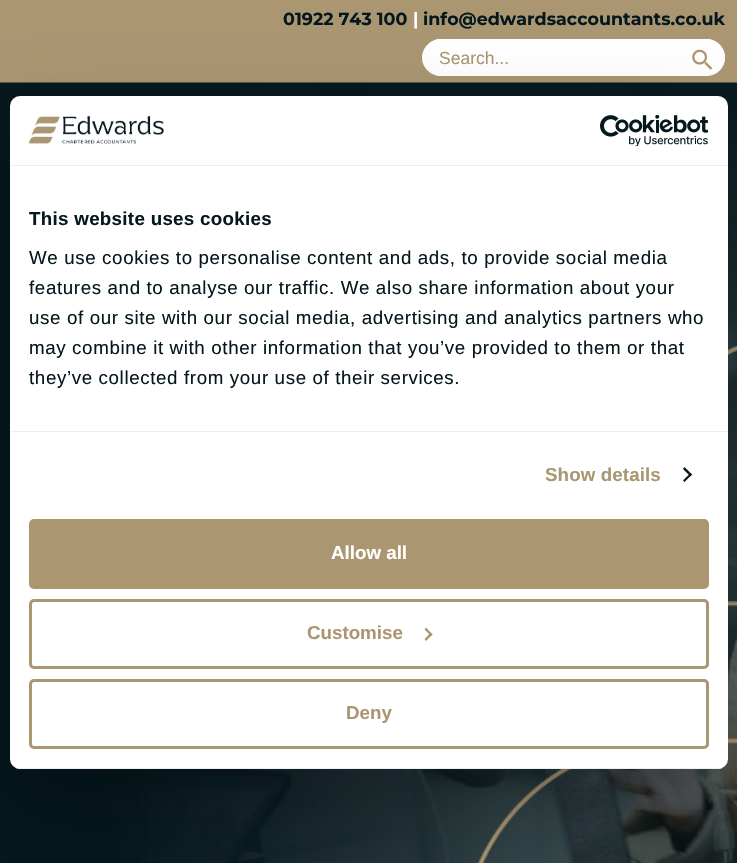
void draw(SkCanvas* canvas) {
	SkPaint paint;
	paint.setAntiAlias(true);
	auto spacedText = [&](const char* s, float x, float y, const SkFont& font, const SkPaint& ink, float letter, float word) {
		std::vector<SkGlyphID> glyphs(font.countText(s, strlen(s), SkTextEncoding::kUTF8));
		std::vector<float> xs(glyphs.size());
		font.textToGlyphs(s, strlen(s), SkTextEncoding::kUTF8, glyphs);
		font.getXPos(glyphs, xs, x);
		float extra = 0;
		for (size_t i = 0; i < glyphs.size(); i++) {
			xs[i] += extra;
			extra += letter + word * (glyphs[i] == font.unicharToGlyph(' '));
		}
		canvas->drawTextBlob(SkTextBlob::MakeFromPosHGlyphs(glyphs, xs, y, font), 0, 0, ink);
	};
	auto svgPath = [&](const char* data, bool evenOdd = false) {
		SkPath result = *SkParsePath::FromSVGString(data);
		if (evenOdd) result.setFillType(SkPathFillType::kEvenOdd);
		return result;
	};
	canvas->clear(0xffab9672);
	SkFont f1(fontMgr->matchFamilyStyle("Montserrat", SkFontStyle::Bold()), 17.5);
	f1.setSubpixel(true);
	paint.setColor(0xff05181e);
	canvas->drawString("01922 743 100", 283, 25, f1, paint);
	paint.setColor(0xffffffff);
	canvas->drawString("|", 413, 25, f1, paint);
	paint.setColor(0xff05181e);
	canvas->drawString("info@edwardsaccountants.co.uk", 423, 25, f1, paint);
	paint.setColor(0xffffffff);
	canvas->drawRoundRect(SkRect::MakeXYWH(423, 39, 302, 37), 18.5, 18.5, paint);
	canvas->drawRoundRect(SkRect::MakeXYWH(423, 39, 257, 37), 18.5, 18.5, paint);
	canvas->drawPath(svgPath("M441 39H661C672 39 680 47 680 58C680 68 672 76 661 76H441C431 76 422 68 422 58C422 47 431 39 441 39ZM441 40H661C672 40 680 48 680 58C680 67 672 75 661 75H441C432 75 424 67 424 58C424 48 432 40 441 40Z", true), paint);
	SkFont f2(fontMgr->matchFamilyStyle("Liberation Sans", SkFontStyle::Normal()), 17.5);
	f2.setSubpixel(true);
	paint.setColor(0xffab9672);
	canvas->drawString("Search...", 439, 64, f2, paint);
	paint.setColor(0xffffffff);
	canvas->drawRoundRect(SkRect::MakeXYWH(680, 39, 45, 37), 18.5, 18.5, paint);
	canvas->drawImageRect(SkImages::DeferredFromEncodedData(SkData::MakeFromFileName("img1.png")), SkRect::MakeXYWH(692, 49, 21, 21), SkSamplingOptions());
	canvas->drawImageRect(SkImages::DeferredFromEncodedData(SkData::MakeFromFileName("img2.png")), SkRect::MakeXYWH(0, 82, 737, 781), SkSamplingOptions());
	paint.setColor(0x4d000000);
	paint.setMaskFilter(SkMaskFilter::MakeBlur(kNormal_SkBlurStyle, 42.5));
	canvas->drawRoundRect(SkRect::MakeXYWH(10, 136, 718, 673), 10, 10, paint);
	paint.setMaskFilter(nullptr);
	paint.setColor(0xffffffff);
	canvas->drawRoundRect(SkRect::MakeXYWH(10, 96, 718, 673), 10, 10, paint);
	paint.setColor(0xffeeeeee);
	canvas->drawRect(SkRect::MakeXYWH(10, 165, 718, 1), paint);
	canvas->drawImageRect(SkImages::DeferredFromEncodedData(SkData::MakeFromFileName("img3.png")), SkRect::MakeXYWH(28, 115, 136, 29), SkSamplingOptions());
	canvas->drawImageRect(SkImages::DeferredFromEncodedData(SkData::MakeFromFileName("img4.png")), SkRect::MakeXYWH(600, 115, 109, 31), SkSamplingOptions());
	canvas->drawRect(SkRect::MakeXYWH(10, 431, 718, 1), paint);
	SkFont f3(fontMgr->matchFamilyStyle("Liberation Sans", SkFontStyle::Bold()), 18.75);
	f3.setSubpixel(true);
	paint.setColor(0xff05181e);
	spacedText("This website uses cookies", 29, 225, f3, paint, 0.3, 0);
	SkFont f4(fontMgr->matchFamilyStyle("Liberation Sans", SkFontStyle::Normal()), 18.75);
	f4.setSubpixel(true);
	spacedText("We use cookies to personalise content and ads, to provide social media", 29, 264, f4, paint, 0.62, 0);
	spacedText("features and to analyse our traffic. We also share information about your", 29, 294, f4, paint, 0.62, 0);
	spacedText("use of our site with our social media, advertising and analytics partners who", 29, 324, f4, paint, 0.62, 0);
	spacedText("may combine it with other information that you’ve provided to them or that", 29, 354, f4, paint, 0.62, 0);
	spacedText("they’ve collected from your use of their services.", 29, 384, f4, paint, 0.62, 0);
	paint.setColor(0xffab9672);
	spacedText("Show details", 545, 481, f3, paint, 0.1, 0);
	paint.setColor(0xff05181e);
	canvas->drawPath(svgPath("M684.5 467L692 474.5L690.5 476.5L683 469Z"), paint);
	canvas->drawPath(svgPath("M690.5 473L692 474.5L684.5 482L683 480.5Z"), paint);
	canvas->save();
	canvas->clipPath(svgPath("M20 96H718C723.5 96 728 100.5 728 106V759C728 764.5 723.5 769 718 769H20C14.5 769 10 764.5 10 759V106C10 100.5 14.5 96 20 96Z"), true);
	paint.setColor(0xffeeeeee);
	canvas->drawRect(SkRect::MakeXYWH(10, 768, 718, 1), paint);
	canvas->restore();
	paint.setColor(0xffab9672);
	canvas->drawRoundRect(SkRect::MakeXYWH(30.5, 520.5, 677, 67), 3.5, 3.5, paint);
	paint.setStroke(true);
	paint.setStrokeWidth(3);
	canvas->drawRoundRect(SkRect::MakeXYWH(30.5, 520.5, 677, 67), 3.5, 3.5, paint);
	paint.setStroke(false);
	paint.setColor(0xffffffff);
	canvas->drawString("Allow all", 331, 559, f3, paint);
	paint.setStroke(true);
	paint.setColor(0xffab9672);
	canvas->drawRoundRect(SkRect::MakeXYWH(30.5, 600.5, 677, 67), 3.5, 3.5, paint);
	paint.setStroke(false);
	canvas->drawString("Customise", 307, 639, f3, paint);
	canvas->drawPath(svgPath("M426 627.5L432.5 634.5L431 636L424.5 629.5Z"), paint);
	canvas->drawPath(svgPath("M431 632.5L432.5 634.5L426 641L424.5 639Z"), paint);
	paint.setStroke(true);
	canvas->drawRoundRect(SkRect::MakeXYWH(30.5, 680.5, 677, 67), 3.5, 3.5, paint);
	paint.setStroke(false);
	canvas->drawString("Deny", 346, 719, f3, paint);
}
